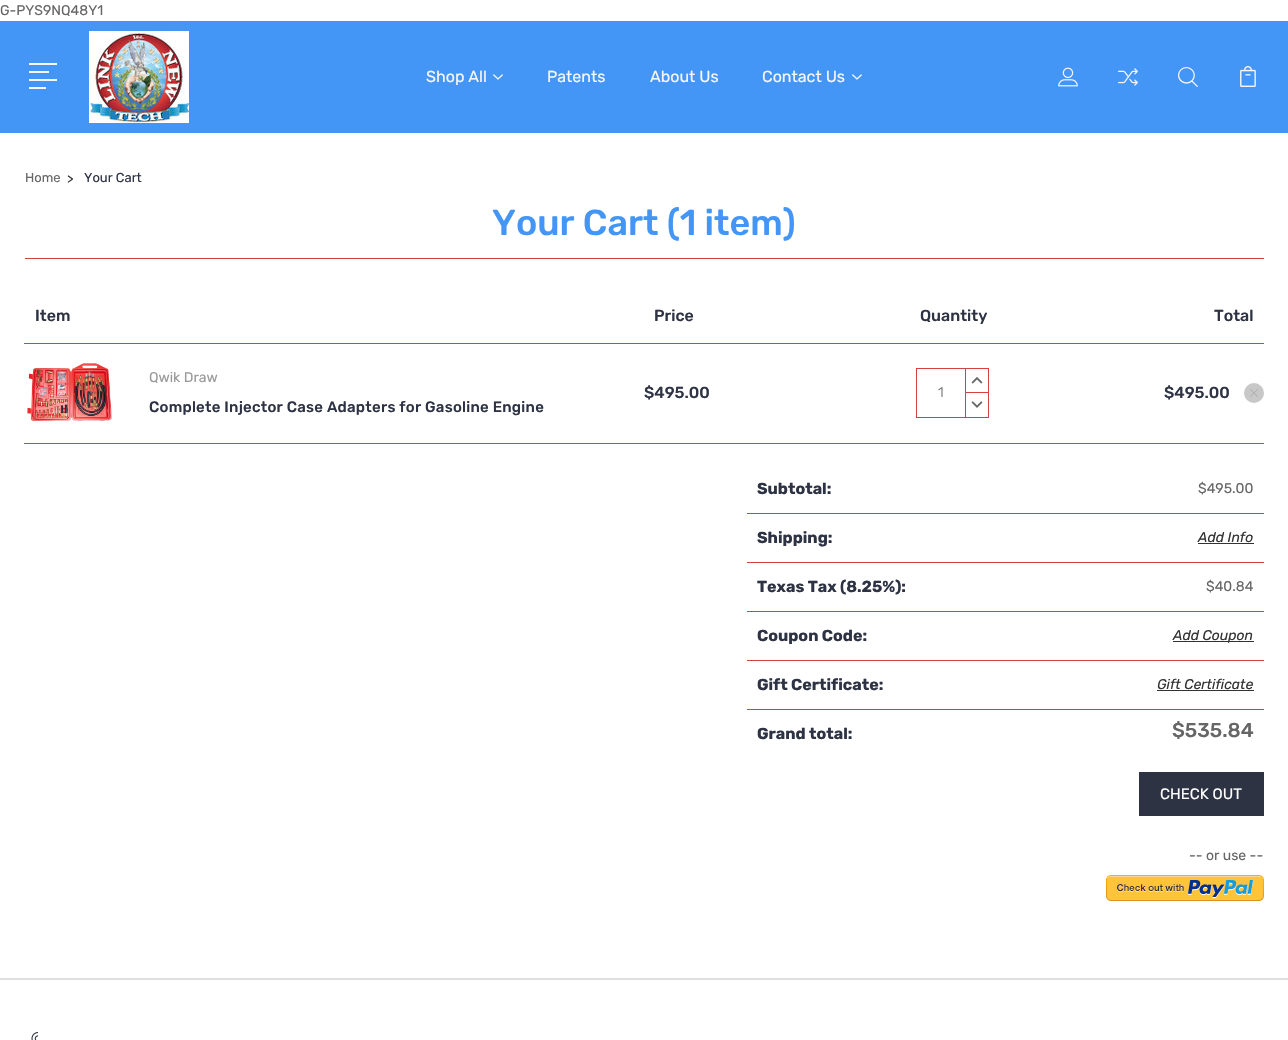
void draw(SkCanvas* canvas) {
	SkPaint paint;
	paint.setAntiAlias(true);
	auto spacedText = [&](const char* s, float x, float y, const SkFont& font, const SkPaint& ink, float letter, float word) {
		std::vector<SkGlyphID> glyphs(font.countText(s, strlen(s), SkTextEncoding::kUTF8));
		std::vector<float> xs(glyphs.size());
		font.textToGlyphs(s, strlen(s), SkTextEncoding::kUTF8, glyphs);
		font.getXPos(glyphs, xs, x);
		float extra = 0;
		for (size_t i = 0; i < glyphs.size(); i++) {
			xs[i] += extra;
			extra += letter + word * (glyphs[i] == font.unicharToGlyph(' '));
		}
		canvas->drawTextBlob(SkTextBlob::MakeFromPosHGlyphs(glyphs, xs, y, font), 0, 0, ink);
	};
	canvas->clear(0xffffffff);
	SkFont f1(fontMgr->matchFamilyStyle("Rubik", SkFontStyle::Normal()), 14);
	f1.setSubpixel(true);
	paint.setColor(0xff666666);
	canvas->drawString("G-PYS9NQ48Y1", 0, 15, f1, paint);
	paint.setColor(0xff4496f6);
	canvas->drawRect(SkRect::MakeXYWH(0, 21, 1288, 112), paint);
	paint.setColor(0xfff6f6f6);
	canvas->drawRect(SkRect::MakeXYWH(29, 63, 28, 2), paint);
	canvas->drawRect(SkRect::MakeXYWH(29, 71, 20, 2), paint);
	canvas->drawRect(SkRect::MakeXYWH(29, 79, 28, 2), paint);
	canvas->drawRect(SkRect::MakeXYWH(29, 87, 17, 2), paint);
	canvas->drawImageRect(SkImages::DeferredFromEncodedData(SkData::MakeFromFileName("img1.png")), SkRect::MakeXYWH(89, 31, 100, 92), SkSamplingOptions());
	SkFont f2(fontMgr->matchFamilyStyle("Rubik", SkFontStyle::Normal()), 16);
	f2.setSubpixel(true);
	canvas->drawString("Shop All", 426, 82, f2, paint);
	canvas->drawImageRect(SkImages::DeferredFromEncodedData(SkData::MakeFromFileName("img2.png")), SkRect::MakeXYWH(493, 74, 10, 6), SkSamplingOptions());
	canvas->drawString("Patents", 547, 82, f2, paint);
	canvas->drawString("About Us", 650, 82, f2, paint);
	canvas->drawString("Contact Us", 762, 82, f2, paint);
	canvas->drawImageRect(SkImages::DeferredFromEncodedData(SkData::MakeFromFileName("img2.png")), SkRect::MakeXYWH(852, 74, 10, 6), SkSamplingOptions());
	canvas->drawImageRect(SkImages::DeferredFromEncodedData(SkData::MakeFromFileName("img3.png")), SkRect::MakeXYWH(1058, 67, 20, 20), SkSamplingOptions());
	canvas->drawImageRect(SkImages::DeferredFromEncodedData(SkData::MakeFromFileName("img4.png")), SkRect::MakeXYWH(1118, 68, 20, 18), SkSamplingOptions());
	canvas->drawImageRect(SkImages::DeferredFromEncodedData(SkData::MakeFromFileName("img5.png")), SkRect::MakeXYWH(1178, 67, 20, 20), SkSamplingOptions());
	canvas->drawImageRect(SkImages::DeferredFromEncodedData(SkData::MakeFromFileName("img6.png")), SkRect::MakeXYWH(1240, 66, 16, 21), SkSamplingOptions());
	SkFont f3(fontMgr->matchFamilyStyle("Rubik", SkFontStyle::Normal()), 13);
	f3.setSubpixel(true);
	paint.setColor(0xff666666);
	canvas->drawString("Home", 25, 182, f3, paint);
	paint.setColor(0xff333333);
	canvas->drawString(">", 67, 183, f3, paint);
	paint.setColor(0xff2e3344);
	canvas->drawString("Your Cart", 84, 182, f3, paint);
	paint.setColor(0xffd14343);
	canvas->drawRect(SkRect::MakeXYWH(25, 258, 1239, 1), paint);
	SkFont f4(fontMgr->matchFamilyStyle("Rubik", SkFontStyle(500, SkFontStyle::kNormal_Width, SkFontStyle::kUpright_Slant)), 36);
	f4.setSubpixel(true);
	paint.setColor(0xff4496f6);
	canvas->drawString("Your Cart (1 item)", 492, 235, f4, paint);
	SkFont f5(fontMgr->matchFamilyStyle("Rubik", SkFontStyle(500, SkFontStyle::kNormal_Width, SkFontStyle::kUpright_Slant)), 16);
	f5.setSubpixel(true);
	paint.setColor(0xff2e3344);
	canvas->drawString("Item", 35, 321, f5, paint);
	canvas->drawString("Price", 654, 321, f5, paint);
	canvas->drawString("Quantity", 920, 321, f5, paint);
	canvas->drawString("Total", 1214, 321, f5, paint);
	paint.setColor(0xffd14343);
	canvas->drawRect(SkRect::MakeXYWH(24, 343, 1240, 1), paint);
	canvas->drawRect(SkRect::MakeXYWH(24, 443, 1240, 1), paint);
	canvas->drawImageRect(SkImages::DeferredFromEncodedData(SkData::MakeFromFileName("img7.png")), SkRect::MakeXYWH(27, 363, 85, 59), SkSamplingOptions());
	paint.setColor(0xff999999);
	canvas->drawString("Qwik Draw", 149, 382, f1, paint);
	SkFont f6(fontMgr->matchFamilyStyle("Rubik", SkFontStyle(500, SkFontStyle::kNormal_Width, SkFontStyle::kUpright_Slant)), 15);
	f6.setSubpixel(true);
	paint.setColor(0xff2e3344);
	spacedText("Complete Injector Case Adapters for Gasoline Engine", 149, 412, f6, paint, 0.25, 0);
	canvas->drawString("$495.00", 644, 398, f5, paint);
	paint.setStroke(true);
	paint.setStrokeWidth(1);
	paint.setColor(0xffd14343);
	canvas->drawRect(SkRect::MakeXYWH(916.5, 368.5, 49, 49), paint);
	SkFont f7(fontMgr->matchFamilyStyle("Rubik", SkFontStyle(300, SkFontStyle::kNormal_Width, SkFontStyle::kUpright_Slant)), 14);
	f7.setSubpixel(true);
	paint.setStroke(false);
	paint.setColor(0xff666666);
	canvas->drawString("1", 938, 397, f7, paint);
	paint.setColor(0xffd14343);
	canvas->drawRect(SkRect::MakeXYWH(966, 368, 23, 1), paint);
	canvas->drawRect(SkRect::MakeXYWH(988, 368, 1, 50), paint);
	canvas->drawRect(SkRect::MakeXYWH(966, 392, 23, 1), paint);
	canvas->drawImageRect(SkImages::DeferredFromEncodedData(SkData::MakeFromFileName("img8.png")), SkRect::MakeXYWH(971, 377, 12, 7), SkSamplingOptions());
	canvas->drawRect(SkRect::MakeXYWH(966, 417, 23, 1), paint);
	canvas->drawImageRect(SkImages::DeferredFromEncodedData(SkData::MakeFromFileName("img9.png")), SkRect::MakeXYWH(971, 401, 12, 7), SkSamplingOptions());
	paint.setColor(0xff2e3344);
	canvas->drawString("$495.00", 1164, 398, f5, paint);
	paint.setColor(0xffc8c8c8);
	canvas->drawCircle(1254, 393, 10, paint);
	canvas->drawImageRect(SkImages::DeferredFromEncodedData(SkData::MakeFromFileName("img10.png")), SkRect::MakeXYWH(1250, 389, 8, 8), SkSamplingOptions());
	SkFont f8(fontMgr->matchFamilyStyle("Rubik", SkFontStyle::Bold()), 16);
	f8.setSubpixel(true);
	paint.setColor(0xff2e3344);
	canvas->drawString("Subtotal:", 757, 494, f8, paint);
	paint.setColor(0xff666666);
	canvas->drawString("$495.00", 1198, 493, f1, paint);
	paint.setColor(0xffd14343);
	canvas->drawRect(SkRect::MakeXYWH(747, 513, 517, 1), paint);
	paint.setColor(0xff2e3344);
	canvas->drawString("Shipping:", 757, 543, f8, paint);
	SkFont f9(fontMgr->matchFamilyStyle("Rubik", SkFontStyle::Italic()), 14);
	f9.setSubpixel(true);
	paint.setColor(0xff333333);
	canvas->drawString("Add Info", 1198, 542, f9, paint);
	canvas->drawRect(SkRect::MakeXYWH(1198, 543, 56, 1), paint);
	paint.setColor(0xffd14343);
	canvas->drawRect(SkRect::MakeXYWH(747, 562, 517, 1), paint);
	paint.setColor(0xff2e3344);
	canvas->drawString("Texas Tax (8.25%):", 757, 592, f8, paint);
	paint.setColor(0xff666666);
	canvas->drawString("$40.84", 1206, 591, f1, paint);
	paint.setColor(0xffd14343);
	canvas->drawRect(SkRect::MakeXYWH(747, 611, 517, 1), paint);
	paint.setColor(0xff2e3344);
	canvas->drawString("Coupon Code:", 757, 641, f8, paint);
	paint.setColor(0xff333333);
	canvas->drawRect(SkRect::MakeXYWH(1173, 641, 81, 1), paint);
	canvas->drawString("Add Coupon", 1173, 640, f9, paint);
	paint.setColor(0xffd14343);
	canvas->drawRect(SkRect::MakeXYWH(747, 660, 517, 1), paint);
	paint.setColor(0xff2e3344);
	canvas->drawString("Gift Certificate:", 757, 690, f8, paint);
	paint.setColor(0xff333333);
	canvas->drawString("Gift Certificate", 1157, 689, f9, paint);
	canvas->drawRect(SkRect::MakeXYWH(1157, 690, 97, 1), paint);
	paint.setColor(0xffd14343);
	canvas->drawRect(SkRect::MakeXYWH(747, 709, 517, 1), paint);
	paint.setColor(0xff2e3344);
	canvas->drawString("Grand total:", 757, 739, f8, paint);
	SkFont f10(fontMgr->matchFamilyStyle("Rubik", SkFontStyle(500, SkFontStyle::kNormal_Width, SkFontStyle::kUpright_Slant)), 20);
	f10.setSubpixel(true);
	paint.setColor(0xff666666);
	canvas->drawString("$535.84", 1172, 737, f10, paint);
	paint.setColor(0xff2e3344);
	canvas->drawRect(SkRect::MakeXYWH(1139, 772, 125, 44), paint);
	SkFont f11(fontMgr->matchFamilyStyle("Rubik", SkFontStyle::Normal()), 15);
	f11.setSubpixel(true);
	paint.setColor(0xffffffff);
	canvas->drawString("CHECK OUT", 1160, 799, f11, paint);
	paint.setColor(0xff666666);
	canvas->drawString("-- or use --", 1189, 860, f1, paint);
	canvas->drawImageRect(SkImages::DeferredFromEncodedData(SkData::MakeFromFileName("img11.png")), SkRect::MakeXYWH(1106, 875, 158, 26), SkSamplingOptions());
	paint.setColor(0xffdfdfdf);
	canvas->drawRect(SkRect::MakeXYWH(0, 978, 1288, 2), paint);
	canvas->drawImageRect(SkImages::DeferredFromEncodedData(SkData::MakeFromFileName("img12.png")), SkRect::MakeXYWH(31, 1032, 7, 8), SkSamplingOptions());
}
